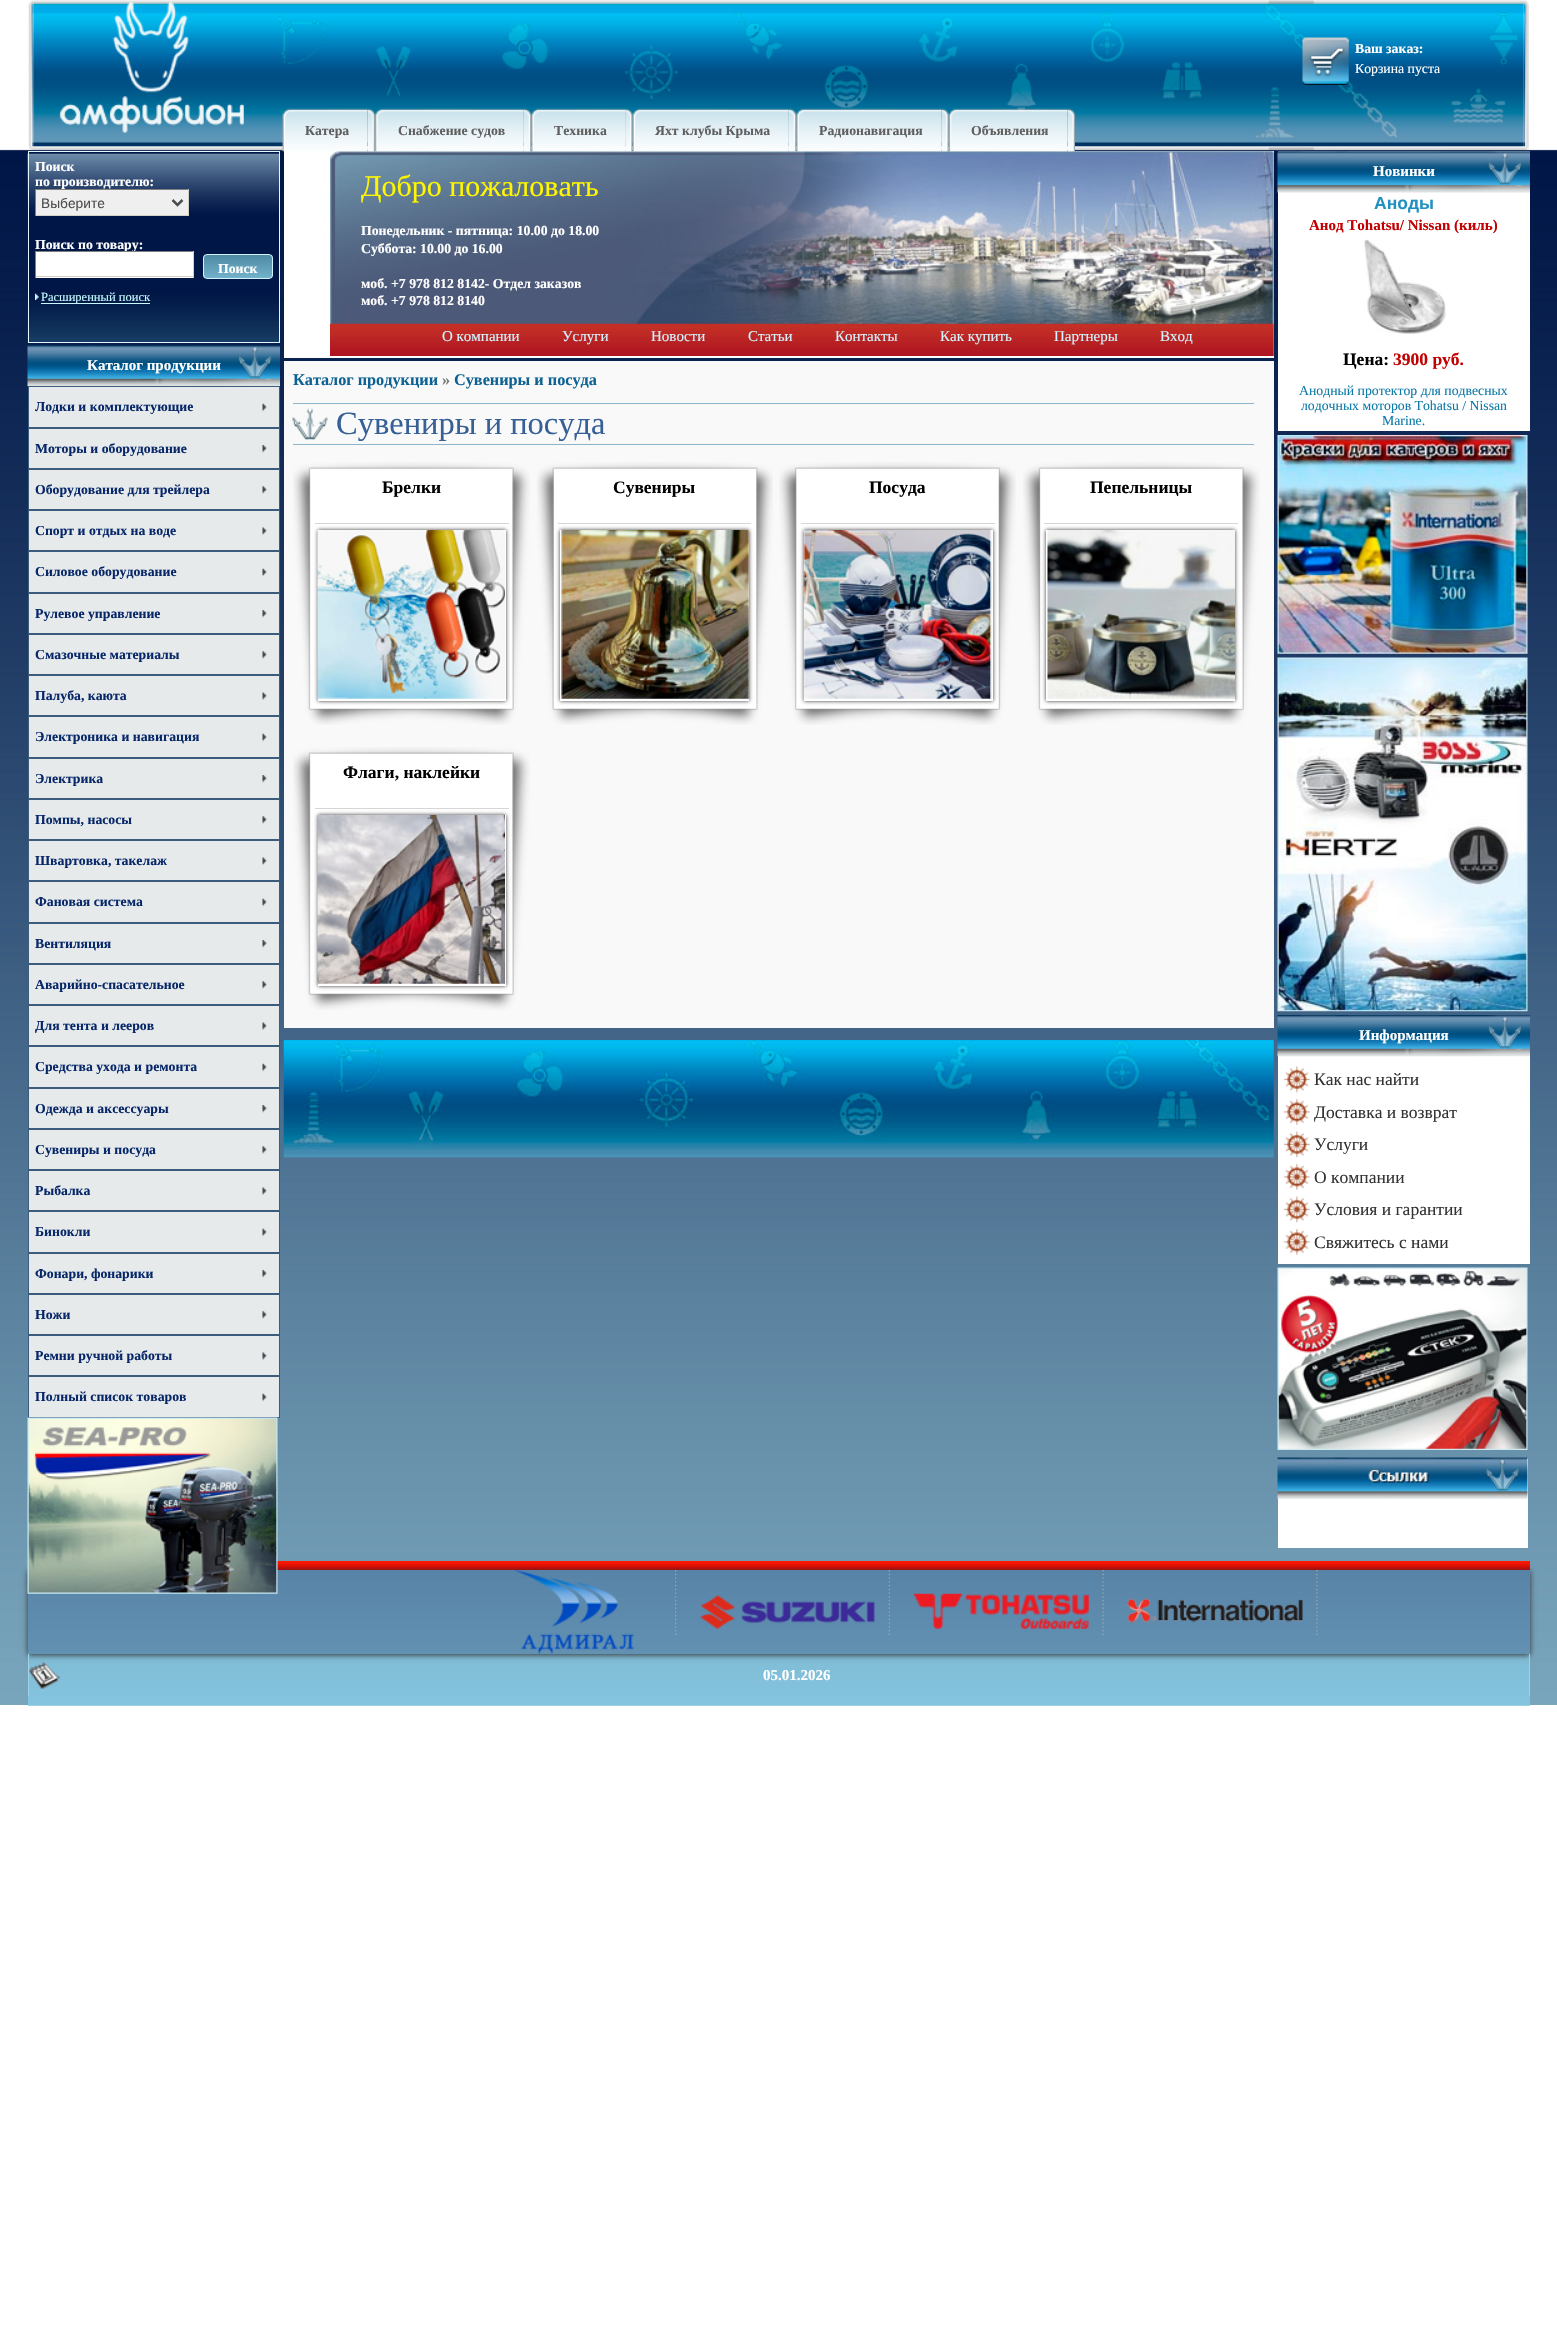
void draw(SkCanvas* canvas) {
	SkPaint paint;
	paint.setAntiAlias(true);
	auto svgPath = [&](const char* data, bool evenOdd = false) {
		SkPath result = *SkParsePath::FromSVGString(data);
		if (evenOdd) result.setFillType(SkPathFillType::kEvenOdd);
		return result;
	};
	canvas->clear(0xffffffff);
	canvas->drawImageRect(SkImages::DeferredFromEncodedData(SkData::MakeFromFileName("img1.png")), SkRect::MakeXYWH(0, 0, 1557, 1705), SkSamplingOptions());
	canvas->drawImageRect(SkImages::DeferredFromEncodedData(SkData::MakeFromFileName("img2.png")), SkRect::MakeXYWH(28, 0, 6, 150), SkSamplingOptions());
	canvas->drawImageRect(SkImages::DeferredFromEncodedData(SkData::MakeFromFileName("img3.png")), SkRect::MakeXYWH(1523, 0, 6, 150), SkSamplingOptions());
	canvas->drawImageRect(SkImages::DeferredFromEncodedData(SkData::MakeFromFileName("img4.png")), SkRect::MakeXYWH(33, 0, 1491, 151), SkSamplingOptions());
	canvas->drawImageRect(SkImages::DeferredFromEncodedData(SkData::MakeFromFileName("img5.png")), SkRect::MakeXYWH(59, 1, 185, 132), SkSamplingOptions());
	canvas->drawImageRect(SkImages::DeferredFromEncodedData(SkData::MakeFromFileName("img6.png")), SkRect::MakeXYWH(1302, 37, 47, 48), SkSamplingOptions());
	SkFont f1(fontMgr->matchFamilyStyle("Liberation Serif", SkFontStyle::Bold()), 13.75);
	f1.setSubpixel(true);
	paint.setColor(0xffffffff);
	canvas->drawString("Ваш заказ:", 1355, 53, f1, paint);
	SkFont f2(fontMgr->matchFamilyStyle("Liberation Serif", SkFontStyle::Normal()), 13.75);
	f2.setSubpixel(true);
	canvas->drawString("Корзина пуста", 1355, 73, f2, paint);
	canvas->drawRect(SkRect::MakeXYWH(284, 151, 990, 207), paint);
	canvas->drawImageRect(SkImages::DeferredFromEncodedData(SkData::MakeFromFileName("img28.png")), SkRect::MakeXYWH(330, 151, 944, 205), SkSamplingOptions());
	canvas->drawImageRect(SkImages::DeferredFromEncodedData(SkData::MakeFromFileName("img7.png")), SkRect::MakeXYWH(367, 108, 8, 44), SkSamplingOptions());
	canvas->drawImageRect(SkImages::DeferredFromEncodedData(SkData::MakeFromFileName("img8.png")), SkRect::MakeXYWH(282, 108, 86, 44), SkSamplingOptions());
	paint.setColor(0xff5f5f5f);
	canvas->drawString("Катера", 305, 135, f1, paint);
	canvas->drawImageRect(SkImages::DeferredFromEncodedData(SkData::MakeFromFileName("img9.png")), SkRect::MakeXYWH(523, 108, 9, 44), SkSamplingOptions());
	canvas->drawImageRect(SkImages::DeferredFromEncodedData(SkData::MakeFromFileName("img10.png")), SkRect::MakeXYWH(375, 108, 149, 44), SkSamplingOptions());
	canvas->drawString("Снабжение судов", 398, 135, f1, paint);
	canvas->drawImageRect(SkImages::DeferredFromEncodedData(SkData::MakeFromFileName("img11.png")), SkRect::MakeXYWH(624, 108, 9, 44), SkSamplingOptions());
	canvas->drawImageRect(SkImages::DeferredFromEncodedData(SkData::MakeFromFileName("img12.png")), SkRect::MakeXYWH(531, 108, 94, 44), SkSamplingOptions());
	canvas->drawString("Техника", 554, 135, f1, paint);
	canvas->drawImageRect(SkImages::DeferredFromEncodedData(SkData::MakeFromFileName("img13.png")), SkRect::MakeXYWH(788, 108, 9, 44), SkSamplingOptions());
	canvas->drawImageRect(SkImages::DeferredFromEncodedData(SkData::MakeFromFileName("img14.png")), SkRect::MakeXYWH(632, 108, 157, 44), SkSamplingOptions());
	canvas->drawString("Яхт клубы Крыма", 655, 135, f1, paint);
	canvas->drawImageRect(SkImages::DeferredFromEncodedData(SkData::MakeFromFileName("img15.png")), SkRect::MakeXYWH(941, 108, 8, 44), SkSamplingOptions());
	canvas->drawImageRect(SkImages::DeferredFromEncodedData(SkData::MakeFromFileName("img16.png")), SkRect::MakeXYWH(796, 108, 146, 44), SkSamplingOptions());
	canvas->drawString("Радионавигация", 819, 135, f1, paint);
	canvas->drawImageRect(SkImages::DeferredFromEncodedData(SkData::MakeFromFileName("img17.png")), SkRect::MakeXYWH(1067, 108, 8, 44), SkSamplingOptions());
	canvas->drawImageRect(SkImages::DeferredFromEncodedData(SkData::MakeFromFileName("img18.png")), SkRect::MakeXYWH(948, 108, 120, 44), SkSamplingOptions());
	canvas->drawString("Объявления", 971, 135, f1, paint);
	canvas->drawImageRect(SkImages::DeferredFromEncodedData(SkData::MakeFromFileName("img19.png")), SkRect::MakeXYWH(27, 153, 252, 190), SkSamplingOptions());
	paint.setStroke(true);
	paint.setStrokeWidth(1);
	paint.setColor(0xffe3f5fd);
	canvas->drawRect(SkRect::MakeXYWH(28.5, 151.5, 251, 191), paint);
	paint.setStroke(false);
	paint.setColor(0xffffffff);
	canvas->drawString("Поиск", 35, 171, f1, paint);
	canvas->drawString("по производителю:", 35, 186, f1, paint);
	paint.setColor(0xffefefef);
	canvas->drawRect(SkRect::MakeXYWH(36, 190, 152, 25), paint);
	paint.setColor(0xff808080);
	canvas->drawRect(SkRect::MakeXYWH(35, 189, 154, 1), paint);
	paint.setColor(0xffd4d0c8);
	canvas->drawRect(SkRect::MakeXYWH(188, 189, 1, 27), paint);
	canvas->drawRect(SkRect::MakeXYWH(35, 215, 154, 1), paint);
	paint.setColor(0xff808080);
	canvas->drawRect(SkRect::MakeXYWH(35, 189, 1, 27), paint);
	paint.setStroke(true);
	paint.setStrokeWidth(2.5);
	paint.setColor(0xff4e4e4e);
	canvas->drawPath(svgPath("M172.5 200L177.5 205L182.5 200"), paint);
	SkFont f3(fontMgr->matchFamilyStyle("Liberation Sans", SkFontStyle::Normal()), 13.75);
	f3.setSubpixel(true);
	paint.setStroke(false);
	canvas->drawString("Выберите", 41, 208, f3, paint);
	paint.setColor(0xffffffff);
	canvas->drawString("Поиск по товару:", 35, 249, f1, paint);
	canvas->drawRect(SkRect::MakeXYWH(36, 252, 157, 26), paint);
	paint.setColor(0xff808080);
	canvas->drawRect(SkRect::MakeXYWH(35, 251, 159, 1), paint);
	paint.setColor(0xffd4d0c8);
	canvas->drawRect(SkRect::MakeXYWH(193, 251, 1, 27), paint);
	canvas->drawRect(SkRect::MakeXYWH(35, 276, 159, 1), paint);
	paint.setColor(0xff808080);
	canvas->drawRect(SkRect::MakeXYWH(35, 251, 1, 27), paint);
	canvas->save();
	canvas->clipPath(svgPath("M207 254H269C271 254 273 256 273 258V275C273 277 271 279 269 279H207C205 279 203 277 203 275V258C203 256 205 254 207 254Z"), true);
	{
		const SkColor colors[] = {0xff4e89a2, 0xff73b2cc};
		const float stops[] = {0, 1};
		const SkPoint ends[] = {{238, 255}, {238, 278}};
		paint.setShader(SkGradientShader::MakeLinear(ends, colors, stops, 2, SkTileMode::kClamp));
		paint.setAlpha(255);
	}
	canvas->drawRect(SkRect::MakeXYWH(203, 255, 70, 23), paint);
	canvas->restore();
	paint.setStroke(true);
	paint.setStrokeWidth(1);
	paint.setShader(nullptr);
	paint.setColor(0xffd3f2ff);
	canvas->drawRoundRect(SkRect::MakeXYWH(203.5, 254.5, 69, 24), 3.5, 3.5, paint);
	paint.setStroke(false);
	paint.setColor(0xffffffff);
	canvas->drawString("Поиск", 218, 273, f1, paint);
	canvas->drawImageRect(SkImages::DeferredFromEncodedData(SkData::MakeFromFileName("img20.png")), SkRect::MakeXYWH(35, 293, 4, 7), SkSamplingOptions());
	paint.setColor(0xffc6f9ff);
	canvas->drawRect(SkRect::MakeXYWH(41, 303, 109, 1), paint);
	SkFont f4(fontMgr->matchFamilyStyle("Liberation Serif", SkFontStyle::Normal()), 12.5);
	f4.setSubpixel(true);
	canvas->drawString("Расширенный поиск", 41, 301, f4, paint);
	canvas->drawImageRect(SkImages::DeferredFromEncodedData(SkData::MakeFromFileName("img21.png")), SkRect::MakeXYWH(27, 345, 253, 42), SkSamplingOptions());
	SkFont f5(fontMgr->matchFamilyStyle("Liberation Serif", SkFontStyle::Bold()), 15);
	f5.setSubpixel(true);
	paint.setColor(0xffffffff);
	canvas->drawString("Каталог продукции", 87, 370, f5, paint);
	paint.setColor(0xffe6eaeb);
	canvas->drawRect(SkRect::MakeXYWH(28.5, 386.5, 251, 41), paint);
	paint.setStroke(true);
	paint.setColor(0xff3b5c7d);
	canvas->drawRect(SkRect::MakeXYWH(28.5, 386.5, 251, 41), paint);
	canvas->drawImageRect(SkImages::DeferredFromEncodedData(SkData::MakeFromFileName("img22.png")), SkRect::MakeXYWH(262, 403, 5, 9), SkSamplingOptions());
	paint.setStroke(false);
	paint.setColor(0xff072769);
	canvas->drawString("Лодки и комплектующие", 35, 411, f1, paint);
	paint.setColor(0xffe6eaeb);
	canvas->drawRect(SkRect::MakeXYWH(28.5, 428.5, 251, 40), paint);
	paint.setStroke(true);
	paint.setColor(0xff3b5c7d);
	canvas->drawRect(SkRect::MakeXYWH(28.5, 428.5, 251, 40), paint);
	canvas->drawImageRect(SkImages::DeferredFromEncodedData(SkData::MakeFromFileName("img23.png")), SkRect::MakeXYWH(262, 445, 5, 8), SkSamplingOptions());
	paint.setStroke(false);
	paint.setColor(0xff072769);
	canvas->drawString("Моторы и оборудование", 35, 453, f1, paint);
	paint.setColor(0xffe6eaeb);
	canvas->drawRect(SkRect::MakeXYWH(28.5, 469.5, 251, 40), paint);
	paint.setStroke(true);
	paint.setColor(0xff3b5c7d);
	canvas->drawRect(SkRect::MakeXYWH(28.5, 469.5, 251, 40), paint);
	canvas->drawImageRect(SkImages::DeferredFromEncodedData(SkData::MakeFromFileName("img24.png")), SkRect::MakeXYWH(262, 486, 5, 8), SkSamplingOptions());
	paint.setStroke(false);
	paint.setColor(0xff072769);
	canvas->drawString("Оборудование для трейлера", 35, 494, f1, paint);
	paint.setColor(0xffe6eaeb);
	canvas->drawRect(SkRect::MakeXYWH(28.5, 510.5, 251, 40), paint);
	paint.setStroke(true);
	paint.setColor(0xff3b5c7d);
	canvas->drawRect(SkRect::MakeXYWH(28.5, 510.5, 251, 40), paint);
	canvas->drawImageRect(SkImages::DeferredFromEncodedData(SkData::MakeFromFileName("img25.png")), SkRect::MakeXYWH(262, 527, 5, 8), SkSamplingOptions());
	paint.setStroke(false);
	paint.setColor(0xff072769);
	canvas->drawString("Спорт и отдых на воде", 35, 535, f1, paint);
	paint.setColor(0xffe6eaeb);
	canvas->drawRect(SkRect::MakeXYWH(28.5, 551.5, 251, 41), paint);
	paint.setStroke(true);
	paint.setColor(0xff3b5c7d);
	canvas->drawRect(SkRect::MakeXYWH(28.5, 551.5, 251, 41), paint);
	canvas->drawImageRect(SkImages::DeferredFromEncodedData(SkData::MakeFromFileName("img22.png")), SkRect::MakeXYWH(262, 568, 5, 9), SkSamplingOptions());
	paint.setStroke(false);
	paint.setColor(0xff072769);
	canvas->drawString("Силовое оборудование", 35, 576, f1, paint);
	paint.setColor(0xffe6eaeb);
	canvas->drawRect(SkRect::MakeXYWH(28.5, 593.5, 251, 40), paint);
	paint.setStroke(true);
	paint.setColor(0xff3b5c7d);
	canvas->drawRect(SkRect::MakeXYWH(28.5, 593.5, 251, 40), paint);
	canvas->drawImageRect(SkImages::DeferredFromEncodedData(SkData::MakeFromFileName("img23.png")), SkRect::MakeXYWH(262, 610, 5, 8), SkSamplingOptions());
	paint.setStroke(false);
	paint.setColor(0xff072769);
	canvas->drawString("Рулевое управление", 35, 618, f1, paint);
	paint.setColor(0xffe6eaeb);
	canvas->drawRect(SkRect::MakeXYWH(28.5, 634.5, 251, 40), paint);
	paint.setStroke(true);
	paint.setColor(0xff3b5c7d);
	canvas->drawRect(SkRect::MakeXYWH(28.5, 634.5, 251, 40), paint);
	canvas->drawImageRect(SkImages::DeferredFromEncodedData(SkData::MakeFromFileName("img24.png")), SkRect::MakeXYWH(262, 651, 5, 8), SkSamplingOptions());
	paint.setStroke(false);
	paint.setColor(0xff072769);
	canvas->drawString("Смазочные материалы", 35, 659, f1, paint);
	paint.setColor(0xffe6eaeb);
	canvas->drawRect(SkRect::MakeXYWH(28.5, 675.5, 251, 40), paint);
	paint.setStroke(true);
	paint.setColor(0xff3b5c7d);
	canvas->drawRect(SkRect::MakeXYWH(28.5, 675.5, 251, 40), paint);
	canvas->drawImageRect(SkImages::DeferredFromEncodedData(SkData::MakeFromFileName("img25.png")), SkRect::MakeXYWH(262, 692, 5, 8), SkSamplingOptions());
	paint.setStroke(false);
	paint.setColor(0xff072769);
	canvas->drawString("Палуба, каюта", 35, 700, f1, paint);
	paint.setColor(0xffe6eaeb);
	canvas->drawRect(SkRect::MakeXYWH(28.5, 716.5, 251, 41), paint);
	paint.setStroke(true);
	paint.setColor(0xff3b5c7d);
	canvas->drawRect(SkRect::MakeXYWH(28.5, 716.5, 251, 41), paint);
	canvas->drawImageRect(SkImages::DeferredFromEncodedData(SkData::MakeFromFileName("img22.png")), SkRect::MakeXYWH(262, 733, 5, 9), SkSamplingOptions());
	paint.setStroke(false);
	paint.setColor(0xff072769);
	canvas->drawString("Электроника и навигация", 35, 741, f1, paint);
	paint.setColor(0xffe6eaeb);
	canvas->drawRect(SkRect::MakeXYWH(28.5, 758.5, 251, 40), paint);
	paint.setStroke(true);
	paint.setColor(0xff3b5c7d);
	canvas->drawRect(SkRect::MakeXYWH(28.5, 758.5, 251, 40), paint);
	canvas->drawImageRect(SkImages::DeferredFromEncodedData(SkData::MakeFromFileName("img23.png")), SkRect::MakeXYWH(262, 775, 5, 8), SkSamplingOptions());
	paint.setStroke(false);
	paint.setColor(0xff072769);
	canvas->drawString("Электрика", 35, 783, f1, paint);
	paint.setColor(0xffe6eaeb);
	canvas->drawRect(SkRect::MakeXYWH(28.5, 799.5, 251, 40), paint);
	paint.setStroke(true);
	paint.setColor(0xff3b5c7d);
	canvas->drawRect(SkRect::MakeXYWH(28.5, 799.5, 251, 40), paint);
	canvas->drawImageRect(SkImages::DeferredFromEncodedData(SkData::MakeFromFileName("img24.png")), SkRect::MakeXYWH(262, 816, 5, 8), SkSamplingOptions());
	paint.setStroke(false);
	paint.setColor(0xff072769);
	canvas->drawString("Помпы, насосы", 35, 824, f1, paint);
	paint.setColor(0xffe6eaeb);
	canvas->drawRect(SkRect::MakeXYWH(28.5, 840.5, 251, 40), paint);
	paint.setStroke(true);
	paint.setColor(0xff3b5c7d);
	canvas->drawRect(SkRect::MakeXYWH(28.5, 840.5, 251, 40), paint);
	canvas->drawImageRect(SkImages::DeferredFromEncodedData(SkData::MakeFromFileName("img25.png")), SkRect::MakeXYWH(262, 857, 5, 8), SkSamplingOptions());
	paint.setStroke(false);
	paint.setColor(0xff072769);
	canvas->drawString("Швартовка, такелаж", 35, 865, f1, paint);
	paint.setColor(0xffe6eaeb);
	canvas->drawRect(SkRect::MakeXYWH(28.5, 881.5, 251, 41), paint);
	paint.setStroke(true);
	paint.setColor(0xff3b5c7d);
	canvas->drawRect(SkRect::MakeXYWH(28.5, 881.5, 251, 41), paint);
	canvas->drawImageRect(SkImages::DeferredFromEncodedData(SkData::MakeFromFileName("img22.png")), SkRect::MakeXYWH(262, 898, 5, 9), SkSamplingOptions());
	paint.setStroke(false);
	paint.setColor(0xff072769);
	canvas->drawString("Фановая система", 35, 906, f1, paint);
	paint.setColor(0xffe6eaeb);
	canvas->drawRect(SkRect::MakeXYWH(28.5, 923.5, 251, 40), paint);
	paint.setStroke(true);
	paint.setColor(0xff3b5c7d);
	canvas->drawRect(SkRect::MakeXYWH(28.5, 923.5, 251, 40), paint);
	canvas->drawImageRect(SkImages::DeferredFromEncodedData(SkData::MakeFromFileName("img23.png")), SkRect::MakeXYWH(262, 940, 5, 8), SkSamplingOptions());
	paint.setStroke(false);
	paint.setColor(0xff072769);
	canvas->drawString("Вентиляция", 35, 948, f1, paint);
	paint.setColor(0xffe6eaeb);
	canvas->drawRect(SkRect::MakeXYWH(28.5, 964.5, 251, 40), paint);
	paint.setStroke(true);
	paint.setColor(0xff3b5c7d);
	canvas->drawRect(SkRect::MakeXYWH(28.5, 964.5, 251, 40), paint);
	canvas->drawImageRect(SkImages::DeferredFromEncodedData(SkData::MakeFromFileName("img24.png")), SkRect::MakeXYWH(262, 981, 5, 8), SkSamplingOptions());
	paint.setStroke(false);
	paint.setColor(0xff072769);
	canvas->drawString("Аварийно-спасательное", 35, 989, f1, paint);
	paint.setColor(0xffe6eaeb);
	canvas->drawRect(SkRect::MakeXYWH(28.5, 1005.5, 251, 40), paint);
	paint.setStroke(true);
	paint.setColor(0xff3b5c7d);
	canvas->drawRect(SkRect::MakeXYWH(28.5, 1005.5, 251, 40), paint);
	canvas->drawImageRect(SkImages::DeferredFromEncodedData(SkData::MakeFromFileName("img26.png")), SkRect::MakeXYWH(262, 1022, 5, 8), SkSamplingOptions());
	paint.setStroke(false);
	paint.setColor(0xff072769);
	canvas->drawString("Для тента и лееров", 35, 1030, f1, paint);
	paint.setColor(0xffe6eaeb);
	canvas->drawRect(SkRect::MakeXYWH(28.5, 1046.5, 251, 41), paint);
	paint.setStroke(true);
	paint.setColor(0xff3b5c7d);
	canvas->drawRect(SkRect::MakeXYWH(28.5, 1046.5, 251, 41), paint);
	canvas->drawImageRect(SkImages::DeferredFromEncodedData(SkData::MakeFromFileName("img22.png")), SkRect::MakeXYWH(262, 1063, 5, 9), SkSamplingOptions());
	paint.setStroke(false);
	paint.setColor(0xff072769);
	canvas->drawString("Средства ухода и ремонта", 35, 1071, f1, paint);
	paint.setColor(0xffe6eaeb);
	canvas->drawRect(SkRect::MakeXYWH(28.5, 1088.5, 251, 40), paint);
	paint.setStroke(true);
	paint.setColor(0xff3b5c7d);
	canvas->drawRect(SkRect::MakeXYWH(28.5, 1088.5, 251, 40), paint);
	canvas->drawImageRect(SkImages::DeferredFromEncodedData(SkData::MakeFromFileName("img23.png")), SkRect::MakeXYWH(262, 1105, 5, 8), SkSamplingOptions());
	paint.setStroke(false);
	paint.setColor(0xff072769);
	canvas->drawString("Одежда и аксессуары", 35, 1113, f1, paint);
	paint.setColor(0xffe6eaeb);
	canvas->drawRect(SkRect::MakeXYWH(28.5, 1129.5, 251, 40), paint);
	paint.setStroke(true);
	paint.setColor(0xff3b5c7d);
	canvas->drawRect(SkRect::MakeXYWH(28.5, 1129.5, 251, 40), paint);
	canvas->drawImageRect(SkImages::DeferredFromEncodedData(SkData::MakeFromFileName("img24.png")), SkRect::MakeXYWH(262, 1146, 5, 8), SkSamplingOptions());
	paint.setStroke(false);
	paint.setColor(0xff072769);
	canvas->drawString("Сувениры и посуда", 35, 1154, f1, paint);
	paint.setColor(0xffe6eaeb);
	canvas->drawRect(SkRect::MakeXYWH(28.5, 1170.5, 251, 40), paint);
	paint.setStroke(true);
	paint.setColor(0xff3b5c7d);
	canvas->drawRect(SkRect::MakeXYWH(28.5, 1170.5, 251, 40), paint);
	canvas->drawImageRect(SkImages::DeferredFromEncodedData(SkData::MakeFromFileName("img25.png")), SkRect::MakeXYWH(262, 1187, 5, 8), SkSamplingOptions());
	paint.setStroke(false);
	paint.setColor(0xff072769);
	canvas->drawString("Рыбалка", 35, 1195, f1, paint);
	paint.setColor(0xffe6eaeb);
	canvas->drawRect(SkRect::MakeXYWH(28.5, 1211.5, 251, 41), paint);
	paint.setStroke(true);
	paint.setColor(0xff3b5c7d);
	canvas->drawRect(SkRect::MakeXYWH(28.5, 1211.5, 251, 41), paint);
	canvas->drawImageRect(SkImages::DeferredFromEncodedData(SkData::MakeFromFileName("img22.png")), SkRect::MakeXYWH(262, 1228, 5, 9), SkSamplingOptions());
	paint.setStroke(false);
	paint.setColor(0xff072769);
	canvas->drawString("Бинокли", 35, 1236, f1, paint);
	paint.setColor(0xffe6eaeb);
	canvas->drawRect(SkRect::MakeXYWH(28.5, 1253.5, 251, 40), paint);
	paint.setStroke(true);
	paint.setColor(0xff3b5c7d);
	canvas->drawRect(SkRect::MakeXYWH(28.5, 1253.5, 251, 40), paint);
	canvas->drawImageRect(SkImages::DeferredFromEncodedData(SkData::MakeFromFileName("img23.png")), SkRect::MakeXYWH(262, 1270, 5, 8), SkSamplingOptions());
	paint.setStroke(false);
	paint.setColor(0xff072769);
	canvas->drawString("Фонари, фонарики", 35, 1278, f1, paint);
	paint.setColor(0xffe6eaeb);
	canvas->drawRect(SkRect::MakeXYWH(28.5, 1294.5, 251, 40), paint);
	paint.setStroke(true);
	paint.setColor(0xff3b5c7d);
	canvas->drawRect(SkRect::MakeXYWH(28.5, 1294.5, 251, 40), paint);
	canvas->drawImageRect(SkImages::DeferredFromEncodedData(SkData::MakeFromFileName("img24.png")), SkRect::MakeXYWH(262, 1311, 5, 8), SkSamplingOptions());
	paint.setStroke(false);
	paint.setColor(0xff072769);
	canvas->drawString("Ножи", 35, 1319, f1, paint);
	paint.setColor(0xffe6eaeb);
	canvas->drawRect(SkRect::MakeXYWH(28.5, 1335.5, 251, 40), paint);
	paint.setStroke(true);
	paint.setColor(0xff3b5c7d);
	canvas->drawRect(SkRect::MakeXYWH(28.5, 1335.5, 251, 40), paint);
	canvas->drawImageRect(SkImages::DeferredFromEncodedData(SkData::MakeFromFileName("img25.png")), SkRect::MakeXYWH(262, 1352, 5, 8), SkSamplingOptions());
	paint.setStroke(false);
	paint.setColor(0xff072769);
	canvas->drawString("Ремни ручной работы", 35, 1360, f1, paint);
	paint.setColor(0xffe6eaeb);
	canvas->drawRect(SkRect::MakeXYWH(28.5, 1376.5, 251, 41), paint);
	paint.setStroke(true);
	paint.setColor(0xff3b5c7d);
	canvas->drawRect(SkRect::MakeXYWH(28.5, 1376.5, 251, 41), paint);
	canvas->drawImageRect(SkImages::DeferredFromEncodedData(SkData::MakeFromFileName("img22.png")), SkRect::MakeXYWH(262, 1393, 5, 9), SkSamplingOptions());
	paint.setStroke(false);
	paint.setColor(0xff072769);
	canvas->drawString("Полный список товаров", 35, 1401, f1, paint);
	{
		const SkColor colors[] = {0xff7cadc5, 0xff83c4df};
		const float stops[] = {0, 1};
		const SkPoint ends[] = {{779, 1561}, {779, 1705}};
		paint.setShader(SkGradientShader::MakeLinear(ends, colors, stops, 2, SkTileMode::kClamp));
		paint.setAlpha(255);
	}
	canvas->drawRect(SkRect::MakeXYWH(28, 1654, 1502, 51), paint);
	{
		const SkColor colors[] = {0xffff1a00, 0xffcc0300};
		const float stops[] = {0, 1};
		const SkPoint ends[] = {{779, 1561}, {779, 1570}};
		paint.setShader(SkGradientShader::MakeLinear(ends, colors, stops, 2, SkTileMode::kClamp));
		paint.setAlpha(255);
	}
	canvas->drawRect(SkRect::MakeXYWH(277, 1561, 1253, 9), paint);
	paint.setShader(nullptr);
	paint.setColor(0xff333333);
	paint.setMaskFilter(SkMaskFilter::MakeBlur(kNormal_SkBlurStyle, 3));
	canvas->drawRect(SkRect::MakeXYWH(28, 1571, 1502, 84), paint);
	paint.setMaskFilter(nullptr);
	{
		const SkColor colors[] = {0xff5783a7, 0xff6291b2};
		const float stops[] = {0, 1};
		const SkPoint ends[] = {{779, 1570}, {779, 1654}};
		paint.setShader(SkGradientShader::MakeLinear(ends, colors, stops, 2, SkTileMode::kClamp));
		paint.setAlpha(255);
	}
	canvas->drawRect(SkRect::MakeXYWH(28, 1570, 1502, 84), paint);
	canvas->drawImageRect(SkImages::DeferredFromEncodedData(SkData::MakeFromFileName("img27.png")), SkRect::MakeXYWH(27, 1417, 251, 177), SkSamplingOptions());
	SkFont f6(fontMgr->matchFamilyStyle("Liberation Serif", SkFontStyle::Normal()), 30);
	f6.setSubpixel(true);
	paint.setShader(nullptr);
	paint.setColor(0xfffff600);
	canvas->drawString("Добро пожаловать", 361, 196, f6, paint);
	paint.setColor(0xffffffff);
	canvas->drawString("Понедельник - пятница: 10.00 до 18.00", 361, 235, f1, paint);
	canvas->drawString("Суббота: 10.00 до 16.00", 361, 253, f1, paint);
	canvas->drawString("моб. +7 978 812 8142- Отдел заказов", 361, 288, f1, paint);
	canvas->drawString("моб. +7 978 812 8140", 361, 305, f1, paint);
	SkFont f7(fontMgr->matchFamilyStyle("Liberation Serif", SkFontStyle::Normal()), 15);
	f7.setSubpixel(true);
	paint.setColor(0xffd3f4ff);
	canvas->drawString("О компании", 442, 341, f7, paint);
	canvas->drawString("Услуги", 562, 341, f7, paint);
	canvas->drawString("Новости", 651, 341, f7, paint);
	canvas->drawString("Статьи", 748, 341, f7, paint);
	canvas->drawString("Контакты", 835, 341, f7, paint);
	canvas->drawString("Как купить", 940, 341, f7, paint);
	canvas->drawString("Партнеры", 1054, 341, f7, paint);
	canvas->drawString("Вход", 1160, 341, f7, paint);
	paint.setColor(0xfff9f9f9);
	canvas->drawRect(SkRect::MakeXYWH(284, 361, 990, 667), paint);
	SkFont f8(fontMgr->matchFamilyStyle("Liberation Serif", SkFontStyle::Bold()), 16.25);
	f8.setSubpixel(true);
	paint.setColor(0xff0d6294);
	canvas->drawString("Каталог продукции", 293, 385, f8, paint);
	paint.setColor(0xff777777);
	canvas->drawString("»", 442, 385, f8, paint);
	paint.setColor(0xff0d6294);
	canvas->drawString("Сувениры и посуда", 454, 385, f8, paint);
	canvas->drawImageRect(SkImages::DeferredFromEncodedData(SkData::MakeFromFileName("img29.png")), SkRect::MakeXYWH(292, 408, 36, 32), SkSamplingOptions());
	paint.setColor(0xff8db4cb);
	canvas->drawRect(SkRect::MakeXYWH(293, 403, 961, 1), paint);
	canvas->drawRect(SkRect::MakeXYWH(293, 444, 961, 1), paint);
	SkFont f9(fontMgr->matchFamilyStyle("Liberation Serif", SkFontStyle::Normal()), 32.5);
	f9.setSubpixel(true);
	paint.setColor(0xff366096);
	canvas->drawString("Сувениры и посуда", 336, 434, f9, paint);
	canvas->drawImageRect(SkImages::DeferredFromEncodedData(SkData::MakeFromFileName("img30.png")), SkRect::MakeXYWH(293, 462, 237, 263), SkSamplingOptions());
	canvas->save();
	canvas->clipPath(svgPath("M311 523H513V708H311ZM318 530H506V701H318Z", true), true);
	paint.setColor(0xff333333);
	paint.setMaskFilter(SkMaskFilter::MakeBlur(kNormal_SkBlurStyle, 2));
	canvas->drawRect(SkRect::MakeXYWH(318, 530, 188, 171), paint);
	paint.setMaskFilter(nullptr);
	canvas->restore();
	paint.setColor(0xffd6d6d6);
	canvas->drawRect(SkRect::MakeXYWH(315, 523, 194, 1), paint);
	SkFont f10(fontMgr->matchFamilyStyle("Liberation Serif", SkFontStyle::Bold()), 17.5);
	f10.setSubpixel(true);
	paint.setColor(0xff000000);
	canvas->drawString("Брелки", 382, 493, f10, paint);
	canvas->drawImageRect(SkImages::DeferredFromEncodedData(SkData::MakeFromFileName("img31.png")), SkRect::MakeXYWH(317, 530, 188, 169), SkSamplingOptions());
	canvas->drawImageRect(SkImages::DeferredFromEncodedData(SkData::MakeFromFileName("img32.png")), SkRect::MakeXYWH(537, 462, 236, 263), SkSamplingOptions());
	canvas->save();
	canvas->clipPath(svgPath("M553 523H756V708H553ZM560 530H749V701H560Z", true), true);
	paint.setColor(0xff333333);
	paint.setMaskFilter(SkMaskFilter::MakeBlur(kNormal_SkBlurStyle, 2));
	canvas->drawRect(SkRect::MakeXYWH(560, 530, 189, 171), paint);
	paint.setMaskFilter(nullptr);
	canvas->restore();
	paint.setColor(0xffd6d6d6);
	canvas->drawRect(SkRect::MakeXYWH(558, 523, 193, 1), paint);
	paint.setColor(0xff000000);
	canvas->drawString("Сувениры", 613, 493, f10, paint);
	canvas->drawImageRect(SkImages::DeferredFromEncodedData(SkData::MakeFromFileName("img33.png")), SkRect::MakeXYWH(561, 530, 188, 169), SkSamplingOptions());
	canvas->drawImageRect(SkImages::DeferredFromEncodedData(SkData::MakeFromFileName("img34.png")), SkRect::MakeXYWH(779, 462, 237, 263), SkSamplingOptions());
	canvas->save();
	canvas->clipPath(svgPath("M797 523H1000V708H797ZM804 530H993V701H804Z", true), true);
	paint.setColor(0xff333333);
	paint.setMaskFilter(SkMaskFilter::MakeBlur(kNormal_SkBlurStyle, 2));
	canvas->drawRect(SkRect::MakeXYWH(804, 530, 189, 171), paint);
	paint.setMaskFilter(nullptr);
	canvas->restore();
	paint.setColor(0xffd6d6d6);
	canvas->drawRect(SkRect::MakeXYWH(801, 523, 194, 1), paint);
	paint.setColor(0xff000000);
	canvas->drawString("Посуда", 869, 493, f10, paint);
	canvas->drawImageRect(SkImages::DeferredFromEncodedData(SkData::MakeFromFileName("img35.png")), SkRect::MakeXYWH(803, 530, 189, 169), SkSamplingOptions());
	canvas->drawImageRect(SkImages::DeferredFromEncodedData(SkData::MakeFromFileName("img36.png")), SkRect::MakeXYWH(1023, 462, 237, 263), SkSamplingOptions());
	canvas->save();
	canvas->clipPath(svgPath("M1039 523H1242V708H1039ZM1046 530H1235V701H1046Z", true), true);
	paint.setColor(0xff333333);
	paint.setMaskFilter(SkMaskFilter::MakeBlur(kNormal_SkBlurStyle, 2));
	canvas->drawRect(SkRect::MakeXYWH(1046, 530, 189, 171), paint);
	paint.setMaskFilter(nullptr);
	canvas->restore();
	paint.setColor(0xffd6d6d6);
	canvas->drawRect(SkRect::MakeXYWH(1044, 523, 194, 1), paint);
	paint.setColor(0xff000000);
	canvas->drawString("Пепельницы", 1090, 493, f10, paint);
	canvas->drawImageRect(SkImages::DeferredFromEncodedData(SkData::MakeFromFileName("img37.png")), SkRect::MakeXYWH(1047, 530, 188, 169), SkSamplingOptions());
	canvas->drawImageRect(SkImages::DeferredFromEncodedData(SkData::MakeFromFileName("img30.png")), SkRect::MakeXYWH(293, 747, 237, 263), SkSamplingOptions());
	canvas->save();
	canvas->clipPath(svgPath("M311 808H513V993H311ZM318 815H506V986H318Z", true), true);
	paint.setColor(0xff333333);
	paint.setMaskFilter(SkMaskFilter::MakeBlur(kNormal_SkBlurStyle, 2));
	canvas->drawRect(SkRect::MakeXYWH(318, 815, 188, 171), paint);
	paint.setMaskFilter(nullptr);
	canvas->restore();
	paint.setColor(0xffd6d6d6);
	canvas->drawRect(SkRect::MakeXYWH(315, 808, 194, 1), paint);
	paint.setColor(0xff000000);
	canvas->drawString("Флаги, наклейки", 343, 778, f10, paint);
	canvas->drawImageRect(SkImages::DeferredFromEncodedData(SkData::MakeFromFileName("img38.png")), SkRect::MakeXYWH(317, 815, 188, 169), SkSamplingOptions());
	canvas->drawImageRect(SkImages::DeferredFromEncodedData(SkData::MakeFromFileName("img39.png")), SkRect::MakeXYWH(283, 1040, 991, 118), SkSamplingOptions());
	paint.setColor(0xffffffff);
	canvas->drawRect(SkRect::MakeXYWH(1278, 151, 252, 280), paint);
	canvas->drawImageRect(SkImages::DeferredFromEncodedData(SkData::MakeFromFileName("img40.png")), SkRect::MakeXYWH(1277, 151, 253, 42), SkSamplingOptions());
	canvas->drawString("Новинки", 1373, 176, f5, paint);
	SkFont f11(fontMgr->matchFamilyStyle("Liberation Sans", SkFontStyle::Bold()), 17.5);
	f11.setSubpixel(true);
	paint.setColor(0xff2191c2);
	canvas->drawString("Аноды", 1374, 209, f11, paint);
	paint.setColor(0xffc20000);
	canvas->drawString("Анод Tohatsu/ Nissan (киль)", 1309, 230, f5, paint);
	canvas->drawImageRect(SkImages::DeferredFromEncodedData(SkData::MakeFromFileName("img41.png")), SkRect::MakeXYWH(1364, 239, 82, 95), SkSamplingOptions());
	paint.setColor(0xff000000);
	canvas->drawString("Цена:", 1343, 365, f10, paint);
	paint.setColor(0xffc20000);
	canvas->drawString("3900 руб.", 1393, 365, f10, paint);
	paint.setColor(0xff0d79a8);
	canvas->drawString("Анодный протектор для подвесных", 1299, 395, f2, paint);
	canvas->drawString("лодочных моторов Tohatsu / Nissan", 1301, 410, f2, paint);
	canvas->drawString("Marine.", 1382, 425, f2, paint);
	canvas->drawImageRect(SkImages::DeferredFromEncodedData(SkData::MakeFromFileName("img42.png")), SkRect::MakeXYWH(1277, 435, 251, 219), SkSamplingOptions());
	canvas->drawImageRect(SkImages::DeferredFromEncodedData(SkData::MakeFromFileName("img43.png")), SkRect::MakeXYWH(1277, 657, 251, 355), SkSamplingOptions());
	paint.setColor(0xffffffff);
	canvas->drawRect(SkRect::MakeXYWH(1278, 1015, 252, 249), paint);
	canvas->drawImageRect(SkImages::DeferredFromEncodedData(SkData::MakeFromFileName("img44.png")), SkRect::MakeXYWH(1277, 1015, 253, 42), SkSamplingOptions());
	canvas->drawString("Информация", 1359, 1040, f5, paint);
	canvas->drawImageRect(SkImages::DeferredFromEncodedData(SkData::MakeFromFileName("img45.png")), SkRect::MakeXYWH(1283, 1066, 27, 27), SkSamplingOptions());
	SkFont f12(fontMgr->matchFamilyStyle("Liberation Serif", SkFontStyle::Normal()), 17.5);
	f12.setSubpixel(true);
	paint.setColor(0xff333333);
	canvas->drawString("Как нас найти", 1314, 1085, f12, paint);
	canvas->drawImageRect(SkImages::DeferredFromEncodedData(SkData::MakeFromFileName("img46.png")), SkRect::MakeXYWH(1283, 1098, 27, 27), SkSamplingOptions());
	canvas->drawString("Доставка и возврат", 1314, 1118, f12, paint);
	canvas->drawImageRect(SkImages::DeferredFromEncodedData(SkData::MakeFromFileName("img45.png")), SkRect::MakeXYWH(1283, 1131, 27, 27), SkSamplingOptions());
	canvas->drawString("Услуги", 1314, 1150, f12, paint);
	canvas->drawImageRect(SkImages::DeferredFromEncodedData(SkData::MakeFromFileName("img47.png")), SkRect::MakeXYWH(1283, 1163, 27, 27), SkSamplingOptions());
	canvas->drawString("О компании", 1314, 1183, f12, paint);
	canvas->drawImageRect(SkImages::DeferredFromEncodedData(SkData::MakeFromFileName("img45.png")), SkRect::MakeXYWH(1283, 1196, 27, 27), SkSamplingOptions());
	canvas->drawString("Условия и гарантии", 1314, 1215, f12, paint);
	canvas->drawImageRect(SkImages::DeferredFromEncodedData(SkData::MakeFromFileName("img46.png")), SkRect::MakeXYWH(1283, 1228, 27, 27), SkSamplingOptions());
	canvas->drawString("Свяжитесь с нами", 1314, 1248, f12, paint);
	canvas->drawImageRect(SkImages::DeferredFromEncodedData(SkData::MakeFromFileName("img48.png")), SkRect::MakeXYWH(1277, 1267, 251, 183), SkSamplingOptions());
	paint.setColor(0xffffffff);
	canvas->drawRect(SkRect::MakeXYWH(1278, 1458, 250, 90), paint);
	canvas->drawImageRect(SkImages::DeferredFromEncodedData(SkData::MakeFromFileName("img49.png")), SkRect::MakeXYWH(1277, 1457, 251, 42), SkSamplingOptions());
	paint.setColor(0xffa0d2e6);
	canvas->drawRect(SkRect::MakeXYWH(28, 1705, 1502, 1), paint);
	canvas->drawImageRect(SkImages::DeferredFromEncodedData(SkData::MakeFromFileName("img50.png")), SkRect::MakeXYWH(675, 1570, 2, 65), SkSamplingOptions());
	canvas->drawImageRect(SkImages::DeferredFromEncodedData(SkData::MakeFromFileName("img51.png")), SkRect::MakeXYWH(514, 1570, 120, 84), SkSamplingOptions());
	canvas->drawImageRect(SkImages::DeferredFromEncodedData(SkData::MakeFromFileName("img52.png")), SkRect::MakeXYWH(888, 1570, 2, 65), SkSamplingOptions());
	canvas->drawImageRect(SkImages::DeferredFromEncodedData(SkData::MakeFromFileName("img53.png")), SkRect::MakeXYWH(700, 1595, 175, 34), SkSamplingOptions());
	canvas->drawImageRect(SkImages::DeferredFromEncodedData(SkData::MakeFromFileName("img54.png")), SkRect::MakeXYWH(1102, 1570, 2, 65), SkSamplingOptions());
	canvas->drawImageRect(SkImages::DeferredFromEncodedData(SkData::MakeFromFileName("img55.png")), SkRect::MakeXYWH(913, 1593, 176, 36), SkSamplingOptions());
	canvas->drawImageRect(SkImages::DeferredFromEncodedData(SkData::MakeFromFileName("img56.png")), SkRect::MakeXYWH(1316, 1570, 2, 65), SkSamplingOptions());
	canvas->drawImageRect(SkImages::DeferredFromEncodedData(SkData::MakeFromFileName("img57.png")), SkRect::MakeXYWH(1127, 1598, 176, 25), SkSamplingOptions());
	canvas->drawImageRect(SkImages::DeferredFromEncodedData(SkData::MakeFromFileName("img58.png")), SkRect::MakeXYWH(29, 1662, 31, 27), SkSamplingOptions());
	canvas->drawRect(SkRect::MakeXYWH(1529, 1654, 1, 42), paint);
	canvas->drawRect(SkRect::MakeXYWH(28, 1654, 1, 42), paint);
	paint.setColor(0xffffffff);
	canvas->drawString("05.01.2026", 763, 1680, f5, paint);
}
